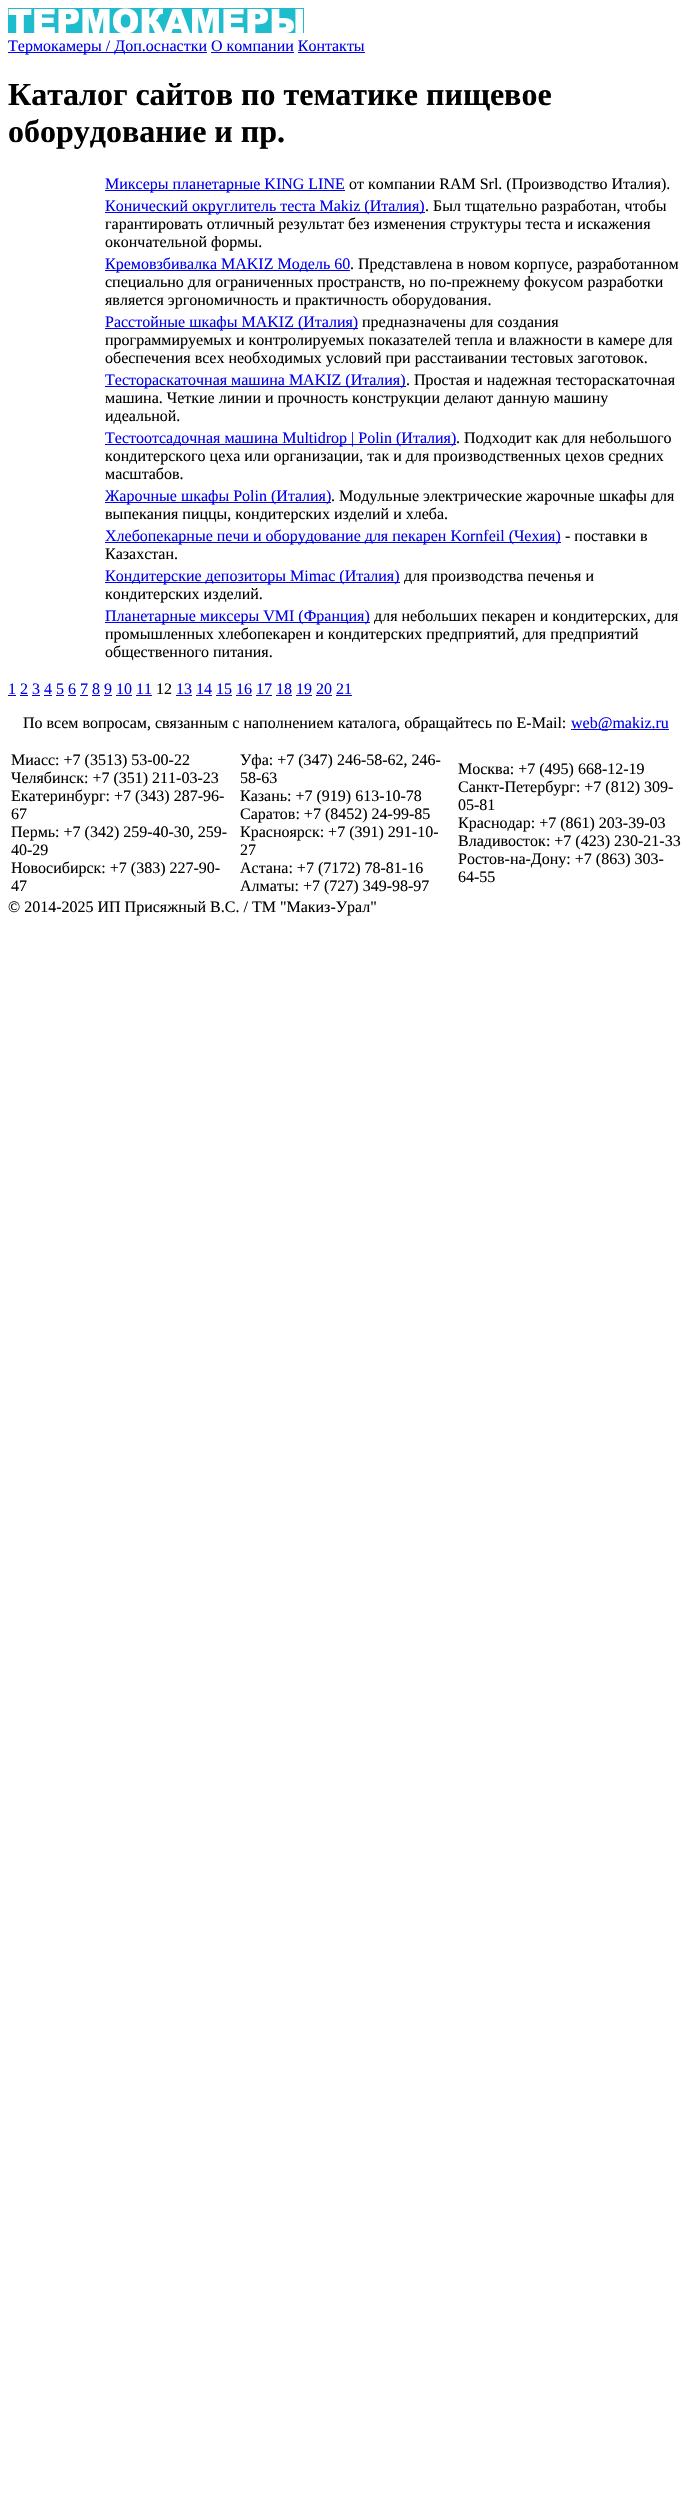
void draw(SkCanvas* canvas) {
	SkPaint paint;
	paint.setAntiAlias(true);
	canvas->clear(0xffffffff);
	canvas->drawImageRect(SkImages::DeferredFromEncodedData(SkData::MakeFromFileName("img1.png")), SkRect::MakeXYWH(8, 8, 296, 25), SkSamplingOptions());
	paint.setColor(0xff0000ee);
	canvas->drawRect(SkRect::MakeXYWH(8, 52, 199, 1), paint);
	SkFont f1(fontMgr->matchFamilyStyle("Liberation Serif", SkFontStyle::Normal()), 16);
	f1.setSubpixel(true);
	canvas->drawString("Термокамеры / Доп.оснастки О компании Контакты", 8, 51, f1, paint);
	canvas->drawRect(SkRect::MakeXYWH(211, 52, 83, 1), paint);
	canvas->drawRect(SkRect::MakeXYWH(298, 52, 67, 1), paint);
	SkFont f2(fontMgr->matchFamilyStyle("Liberation Serif", SkFontStyle::Bold()), 32);
	f2.setSubpixel(true);
	paint.setColor(0xff000000);
	canvas->drawString("Каталог сайтов по тематике пищевое", 8, 105, f2, paint);
	canvas->drawString("оборудование и пр.", 8, 142, f2, paint);
	paint.setColor(0xff0000ee);
	canvas->drawRect(SkRect::MakeXYWH(105, 190, 240, 1), paint);
	canvas->drawString("Миксеры планетарные KING LINE", 105, 189, f1, paint);
	paint.setColor(0xff000000);
	canvas->drawString("от компании RAM Srl. (Производство Италия).", 349, 189, f1, paint);
	paint.setColor(0xff0000ee);
	canvas->drawRect(SkRect::MakeXYWH(105, 212, 320, 1), paint);
	canvas->drawString("Конический округлитель теста Makiz (Италия)", 105, 211, f1, paint);
	paint.setColor(0xff000000);
	canvas->drawString(". Был тщательно разработан, чтобы", 425, 211, f1, paint);
	canvas->drawString("гарантировать отличный результат без изменения структуры теста и искажения", 105, 229, f1, paint);
	canvas->drawString("окончательной формы.", 105, 247, f1, paint);
	paint.setColor(0xff0000ee);
	canvas->drawRect(SkRect::MakeXYWH(105, 270, 245, 1), paint);
	canvas->drawString("Кремовзбивалка MAKIZ Модель 60", 105, 269, f1, paint);
	paint.setColor(0xff000000);
	canvas->drawString(". Представлена в новом корпусе, разработанном", 350, 269, f1, paint);
	canvas->drawString("специально для ограниченных пространств, но по-прежнему фокусом разработки", 105, 287, f1, paint);
	canvas->drawString("является эргономичность и практичность оборудования.", 105, 305, f1, paint);
	paint.setColor(0xff0000ee);
	canvas->drawRect(SkRect::MakeXYWH(105, 328, 253, 1), paint);
	canvas->drawString("Расстойные шкафы MAKIZ (Италия)", 105, 327, f1, paint);
	paint.setColor(0xff000000);
	canvas->drawString("предназначены для создания", 362, 327, f1, paint);
	canvas->drawString("программируемых и контролируемых показателей тепла и влажности в камере для", 105, 345, f1, paint);
	canvas->drawString("обеспечения всех необходимых условий при расстаивании тестовых заготовок.", 105, 363, f1, paint);
	paint.setColor(0xff0000ee);
	canvas->drawRect(SkRect::MakeXYWH(105, 386, 301, 1), paint);
	canvas->drawString("Тестораскаточная машина MAKIZ (Италия)", 105, 385, f1, paint);
	paint.setColor(0xff000000);
	canvas->drawString(". Простая и надежная тестораскаточная", 406, 385, f1, paint);
	canvas->drawString("машина. Четкие линии и прочность конструкции делают данную машину", 105, 403, f1, paint);
	canvas->drawString("идеальной.", 105, 421, f1, paint);
	paint.setColor(0xff0000ee);
	canvas->drawRect(SkRect::MakeXYWH(105, 444, 351, 1), paint);
	canvas->drawString("Тестоотсадочная машина Multidrop | Polin (Италия)", 105, 443, f1, paint);
	paint.setColor(0xff000000);
	canvas->drawString(". Подходит как для небольшого", 456, 443, f1, paint);
	canvas->drawString("кондитерского цеха или организации, так и для производственных цехов средних", 105, 461, f1, paint);
	canvas->drawString("масштабов.", 105, 479, f1, paint);
	paint.setColor(0xff0000ee);
	canvas->drawRect(SkRect::MakeXYWH(105, 502, 226, 1), paint);
	canvas->drawString("Жарочные шкафы Polin (Италия)", 105, 501, f1, paint);
	paint.setColor(0xff000000);
	canvas->drawString(". Модульные электрические жарочные шкафы для", 331, 501, f1, paint);
	canvas->drawString("выпекания пиццы, кондитерских изделий и хлеба.", 105, 519, f1, paint);
	paint.setColor(0xff0000ee);
	canvas->drawRect(SkRect::MakeXYWH(105, 542, 456, 1), paint);
	canvas->drawString("Хлебопекарные печи и оборудование для пекарен Kornfeil (Чехия)", 105, 541, f1, paint);
	paint.setColor(0xff000000);
	canvas->drawString("- поставки в", 565, 541, f1, paint);
	canvas->drawString("Казахстан.", 105, 559, f1, paint);
	paint.setColor(0xff0000ee);
	canvas->drawRect(SkRect::MakeXYWH(105, 582, 295, 1), paint);
	canvas->drawString("Кондитерские депозиторы Mimac (Италия)", 105, 581, f1, paint);
	paint.setColor(0xff000000);
	canvas->drawString("для производства печенья и", 404, 581, f1, paint);
	canvas->drawString("кондитерских изделий.", 105, 599, f1, paint);
	paint.setColor(0xff0000ee);
	canvas->drawRect(SkRect::MakeXYWH(105, 622, 265, 1), paint);
	canvas->drawString("Планетарные миксеры VMI (Франция)", 105, 621, f1, paint);
	paint.setColor(0xff000000);
	canvas->drawString("для небольших пекарен и кондитерских, для", 374, 621, f1, paint);
	canvas->drawString("промышленных хлебопекарен и кондитерских предприятий, для предприятий", 105, 639, f1, paint);
	canvas->drawString("общественного питания.", 105, 657, f1, paint);
	paint.setColor(0xff0000ee);
	canvas->drawString("1 2 3 4 5 6 7 8 9 10 11", 8, 694, f1, paint);
	canvas->drawRect(SkRect::MakeXYWH(8, 695, 8, 1), paint);
	paint.setColor(0xff000000);
	canvas->drawString("12", 156, 694, f1, paint);
	paint.setColor(0xff0000ee);
	canvas->drawString("13 14 15 16 17 18 19 20 21", 176, 694, f1, paint);
	canvas->drawRect(SkRect::MakeXYWH(176, 695, 16, 1), paint);
	canvas->drawRect(SkRect::MakeXYWH(20, 695, 8, 1), paint);
	canvas->drawRect(SkRect::MakeXYWH(32, 695, 8, 1), paint);
	canvas->drawRect(SkRect::MakeXYWH(44, 695, 8, 1), paint);
	canvas->drawRect(SkRect::MakeXYWH(56, 695, 8, 1), paint);
	canvas->drawRect(SkRect::MakeXYWH(68, 695, 8, 1), paint);
	canvas->drawRect(SkRect::MakeXYWH(80, 695, 8, 1), paint);
	canvas->drawRect(SkRect::MakeXYWH(92, 695, 8, 1), paint);
	canvas->drawRect(SkRect::MakeXYWH(104, 695, 8, 1), paint);
	canvas->drawRect(SkRect::MakeXYWH(116, 695, 16, 1), paint);
	canvas->drawRect(SkRect::MakeXYWH(136, 695, 16, 1), paint);
	canvas->drawRect(SkRect::MakeXYWH(196, 695, 16, 1), paint);
	canvas->drawRect(SkRect::MakeXYWH(216, 695, 16, 1), paint);
	canvas->drawRect(SkRect::MakeXYWH(236, 695, 16, 1), paint);
	canvas->drawRect(SkRect::MakeXYWH(256, 695, 16, 1), paint);
	canvas->drawRect(SkRect::MakeXYWH(276, 695, 16, 1), paint);
	canvas->drawRect(SkRect::MakeXYWH(296, 695, 16, 1), paint);
	canvas->drawRect(SkRect::MakeXYWH(316, 695, 16, 1), paint);
	canvas->drawRect(SkRect::MakeXYWH(336, 695, 16, 1), paint);
	paint.setColor(0xff000000);
	canvas->drawString("По всем вопросам, связанным с наполнением каталога, обращайтесь по E-Mail:", 23, 728, f1, paint);
	paint.setColor(0xff0000ee);
	canvas->drawRect(SkRect::MakeXYWH(571, 729, 98, 1), paint);
	canvas->drawString("web@makiz.ru", 571, 728, f1, paint);
	paint.setColor(0xff000000);
	canvas->drawString("Миасс: +7 (3513) 53-00-22", 11, 765, f1, paint);
	canvas->drawString("Челябинск: +7 (351) 211-03-23", 11, 783, f1, paint);
	canvas->drawString("Екатеринбург: +7 (343) 287-96-", 11, 801, f1, paint);
	canvas->drawString("67", 11, 819, f1, paint);
	canvas->drawString("Пермь: +7 (342) 259-40-30, 259-", 11, 837, f1, paint);
	canvas->drawString("40-29", 11, 855, f1, paint);
	canvas->drawString("Новосибирск: +7 (383) 227-90-", 11, 873, f1, paint);
	canvas->drawString("47", 11, 891, f1, paint);
	canvas->drawString("Уфа: +7 (347) 246-58-62, 246-", 240, 765, f1, paint);
	canvas->drawString("58-63", 240, 783, f1, paint);
	canvas->drawString("Казань: +7 (919) 613-10-78", 240, 801, f1, paint);
	canvas->drawString("Саратов: +7 (8452) 24-99-85", 240, 819, f1, paint);
	canvas->drawString("Красноярск: +7 (391) 291-10-", 240, 837, f1, paint);
	canvas->drawString("27", 240, 855, f1, paint);
	canvas->drawString("Астана: +7 (7172) 78-81-16", 240, 873, f1, paint);
	canvas->drawString("Алматы: +7 (727) 349-98-97", 240, 891, f1, paint);
	canvas->drawString("Москва: +7 (495) 668-12-19", 458, 774, f1, paint);
	canvas->drawString("Санкт-Петербург: +7 (812) 309-", 458, 792, f1, paint);
	canvas->drawString("05-81", 458, 810, f1, paint);
	canvas->drawString("Краснодар: +7 (861) 203-39-03", 458, 828, f1, paint);
	canvas->drawString("Владивосток: +7 (423) 230-21-33", 458, 846, f1, paint);
	canvas->drawString("Ростов-на-Дону: +7 (863) 303-", 458, 864, f1, paint);
	canvas->drawString("64-55", 458, 882, f1, paint);
	canvas->drawString("© 2014-2025 ИП Присяжный В.С. / ТМ \"Макиз-Урал\"", 8, 912, f1, paint);
}
